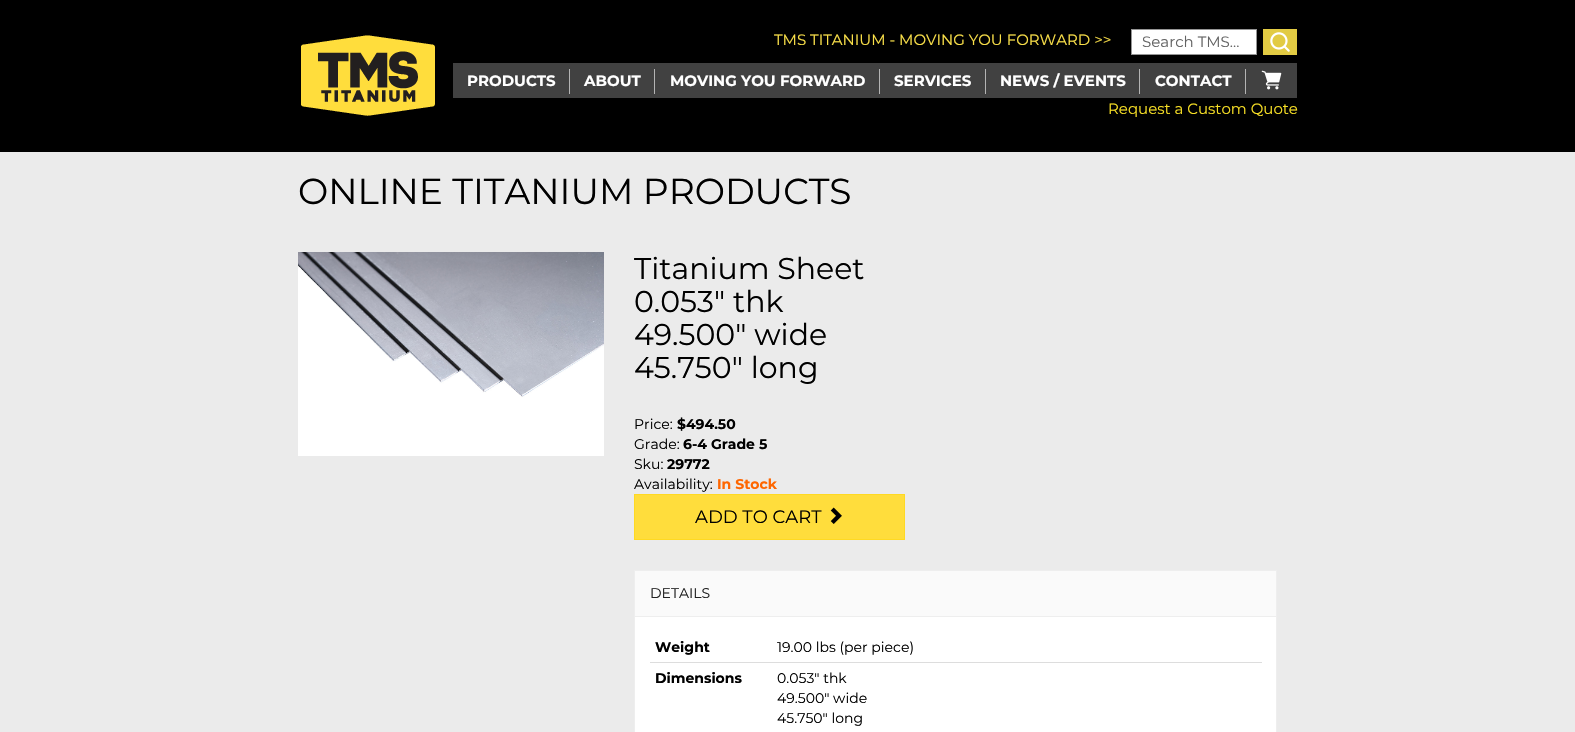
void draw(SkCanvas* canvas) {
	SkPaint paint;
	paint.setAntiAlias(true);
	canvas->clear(0xffebebeb);
	paint.setColor(0xff000000);
	canvas->drawRect(SkRect::MakeXYWH(0, 0, 1575, 152), paint);
	canvas->drawImageRect(SkImages::DeferredFromEncodedData(SkData::MakeFromFileName("img1.png")), SkRect::MakeXYWH(301, 35, 134, 81), SkSamplingOptions());
	SkFont f1(fontMgr->matchFamilyStyle("Montserrat", SkFontStyle::Normal()), 15);
	f1.setSubpixel(true);
	paint.setColor(0xfffae049);
	canvas->drawString("TMS TITANIUM - MOVING YOU FORWARD >>", 774, 45, f1, paint);
	paint.setColor(0xffffffff);
	canvas->drawRect(SkRect::MakeXYWH(1131.5, 29.5, 125, 25), paint);
	paint.setStroke(true);
	paint.setStrokeWidth(1);
	paint.setColor(0xff959595);
	canvas->drawRect(SkRect::MakeXYWH(1131.5, 29.5, 125, 25), paint);
	paint.setStroke(false);
	paint.setColor(0xff636363);
	canvas->drawString("Search TMS...", 1142, 47, f1, paint);
	paint.setColor(0xffe2cb43);
	canvas->drawRect(SkRect::MakeXYWH(1263, 29, 34, 26), paint);
	canvas->drawImageRect(SkImages::DeferredFromEncodedData(SkData::MakeFromFileName("img2.png")), SkRect::MakeXYWH(1270, 32, 20, 20), SkSamplingOptions());
	paint.setColor(0xff414141);
	canvas->drawRect(SkRect::MakeXYWH(453, 63, 844, 35), paint);
	SkFont f2(fontMgr->matchFamilyStyle("Montserrat", SkFontStyle::Bold()), 15);
	f2.setSubpixel(true);
	paint.setColor(0xffffffff);
	canvas->drawString("PRODUCTS", 467, 86, f2, paint);
	paint.setColor(0xffb4b4b4);
	canvas->drawRect(SkRect::MakeXYWH(569, 69, 1, 25), paint);
	paint.setColor(0xffffffff);
	canvas->drawString("ABOUT", 584, 86, f2, paint);
	paint.setColor(0xffb4b4b4);
	canvas->drawRect(SkRect::MakeXYWH(654, 69, 1, 25), paint);
	paint.setColor(0xffffffff);
	canvas->drawString("MOVING YOU FORWARD", 670, 86, f2, paint);
	paint.setColor(0xffb4b4b4);
	canvas->drawRect(SkRect::MakeXYWH(879, 69, 1, 25), paint);
	paint.setColor(0xffffffff);
	canvas->drawString("SERVICES", 894, 86, f2, paint);
	paint.setColor(0xffb4b4b4);
	canvas->drawRect(SkRect::MakeXYWH(985, 69, 1, 25), paint);
	paint.setColor(0xffffffff);
	canvas->drawString("NEWS / EVENTS", 1000, 86, f2, paint);
	paint.setColor(0xffb4b4b4);
	canvas->drawRect(SkRect::MakeXYWH(1139, 69, 1, 25), paint);
	paint.setColor(0xffffffff);
	canvas->drawString("CONTACT", 1155, 86, f2, paint);
	paint.setColor(0xffb4b4b4);
	canvas->drawRect(SkRect::MakeXYWH(1245, 69, 1, 25), paint);
	canvas->drawImageRect(SkImages::DeferredFromEncodedData(SkData::MakeFromFileName("img3.png")), SkRect::MakeXYWH(1261, 70, 21, 20), SkSamplingOptions());
	paint.setColor(0xfff7df25);
	canvas->drawString("Request a Custom Quote", 1108, 114, f1, paint);
	SkFont f3(fontMgr->matchFamilyStyle("Montserrat", SkFontStyle::Normal()), 36);
	f3.setSubpixel(true);
	paint.setColor(0xff000000);
	canvas->drawString("ONLINE TITANIUM PRODUCTS", 298, 204, f3, paint);
	canvas->drawImageRect(SkImages::DeferredFromEncodedData(SkData::MakeFromFileName("img4.png")), SkRect::MakeXYWH(298, 252, 306, 204), SkSamplingOptions());
	SkFont f4(fontMgr->matchFamilyStyle("Montserrat", SkFontStyle::Normal()), 30);
	f4.setSubpixel(true);
	canvas->drawString("Titanium Sheet", 634, 279, f4, paint);
	canvas->drawString("0.053\" thk", 634, 312, f4, paint);
	canvas->drawString("49.500\" wide", 634, 345, f4, paint);
	canvas->drawString("45.750\" long", 634, 378, f4, paint);
	SkFont f5(fontMgr->matchFamilyStyle("Montserrat", SkFontStyle::Normal()), 14);
	f5.setSubpixel(true);
	canvas->drawString("Price:", 634, 429, f5, paint);
	SkFont f6(fontMgr->matchFamilyStyle("Montserrat", SkFontStyle::Bold()), 14);
	f6.setSubpixel(true);
	canvas->drawString("$494.50", 677, 429, f6, paint);
	canvas->drawString("Grade:", 634, 449, f5, paint);
	canvas->drawString("6-4 Grade 5", 683, 449, f6, paint);
	canvas->drawString("Sku:", 634, 469, f5, paint);
	canvas->drawString("29772", 667, 469, f6, paint);
	canvas->drawString("Availability:", 634, 489, f5, paint);
	paint.setColor(0xffff6600);
	canvas->drawString("In Stock", 717, 489, f6, paint);
	paint.setColor(0xffffdd3c);
	canvas->drawRect(SkRect::MakeXYWH(634.5, 494.5, 270, 45), paint);
	paint.setStroke(true);
	paint.setColor(0xffffd922);
	canvas->drawRect(SkRect::MakeXYWH(634.5, 494.5, 270, 45), paint);
	SkFont f7(fontMgr->matchFamilyStyle("Montserrat", SkFontStyle::Normal()), 18);
	f7.setSubpixel(true);
	paint.setStroke(false);
	paint.setColor(0xff000000);
	canvas->drawString("ADD TO CART", 695, 523, f7, paint);
	canvas->drawImageRect(SkImages::DeferredFromEncodedData(SkData::MakeFromFileName("img5.png")), SkRect::MakeXYWH(830, 507, 12, 17), SkSamplingOptions());
	paint.setColor(0xffffffff);
	canvas->drawRect(SkRect::MakeXYWH(635, 617, 641, 115), paint);
	paint.setStroke(true);
	paint.setColor(0xffeeeeee);
	canvas->drawRect(SkRect::MakeXYWH(634.5, 570.5, 642, 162), paint);
	paint.setStroke(false);
	paint.setColor(0xfffafafa);
	canvas->drawRect(SkRect::MakeXYWH(635, 571, 641, 45), paint);
	paint.setColor(0xff212121);
	canvas->drawString("DETAILS", 650, 598, f5, paint);
	paint.setColor(0xffeeeeee);
	canvas->drawRect(SkRect::MakeXYWH(635, 616, 641, 1), paint);
	paint.setColor(0xff000000);
	canvas->drawString("Weight", 655, 652, f6, paint);
	paint.setColor(0xffdddddd);
	canvas->drawRect(SkRect::MakeXYWH(650, 662, 612, 1), paint);
	paint.setColor(0xff000000);
	canvas->drawString("19.00 lbs (per piece)", 777, 652, f5, paint);
	canvas->drawString("Dimensions", 655, 683, f6, paint);
	canvas->drawString("0.053\" thk", 777, 683, f5, paint);
	canvas->drawString("49.500\" wide", 777, 703, f5, paint);
	canvas->drawString("45.750\" long", 777, 723, f5, paint);
}
